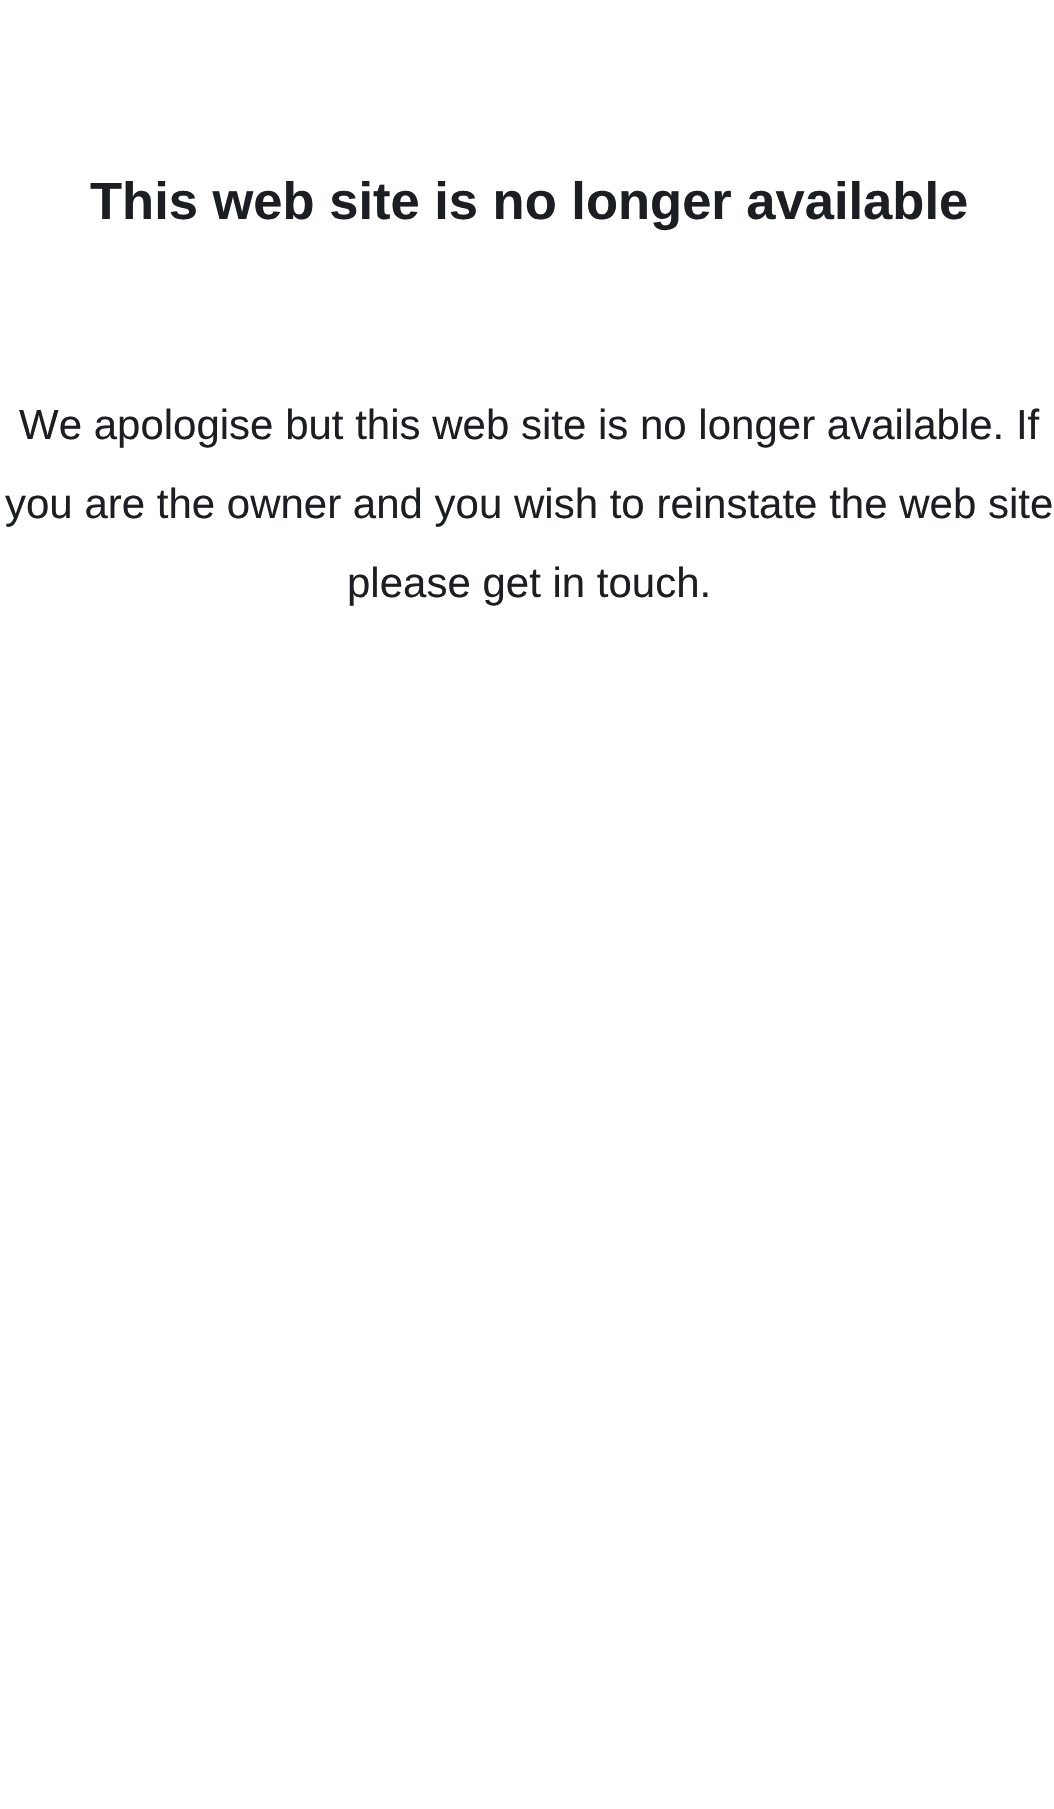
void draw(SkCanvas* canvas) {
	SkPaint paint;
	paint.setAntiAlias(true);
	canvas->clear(0xffffffff);
	SkFont f1(fontMgr->matchFamilyStyle("Liberation Sans", SkFontStyle::Bold()), 52.5);
	f1.setSubpixel(true);
	paint.setColor(0xff1b1f23);
	canvas->drawString("This web site is no longer available", 90, 219, f1, paint);
	SkFont f2(fontMgr->matchFamilyStyle("Liberation Sans", SkFontStyle::Normal()), 42);
	f2.setSubpixel(true);
	canvas->drawString("We apologise but this web site is no longer available. If", 19, 439, f2, paint);
	canvas->drawString("you are the owner and you wish to reinstate the web site", 5, 518, f2, paint);
	canvas->drawString("please get in touch.", 347, 597, f2, paint);
}
